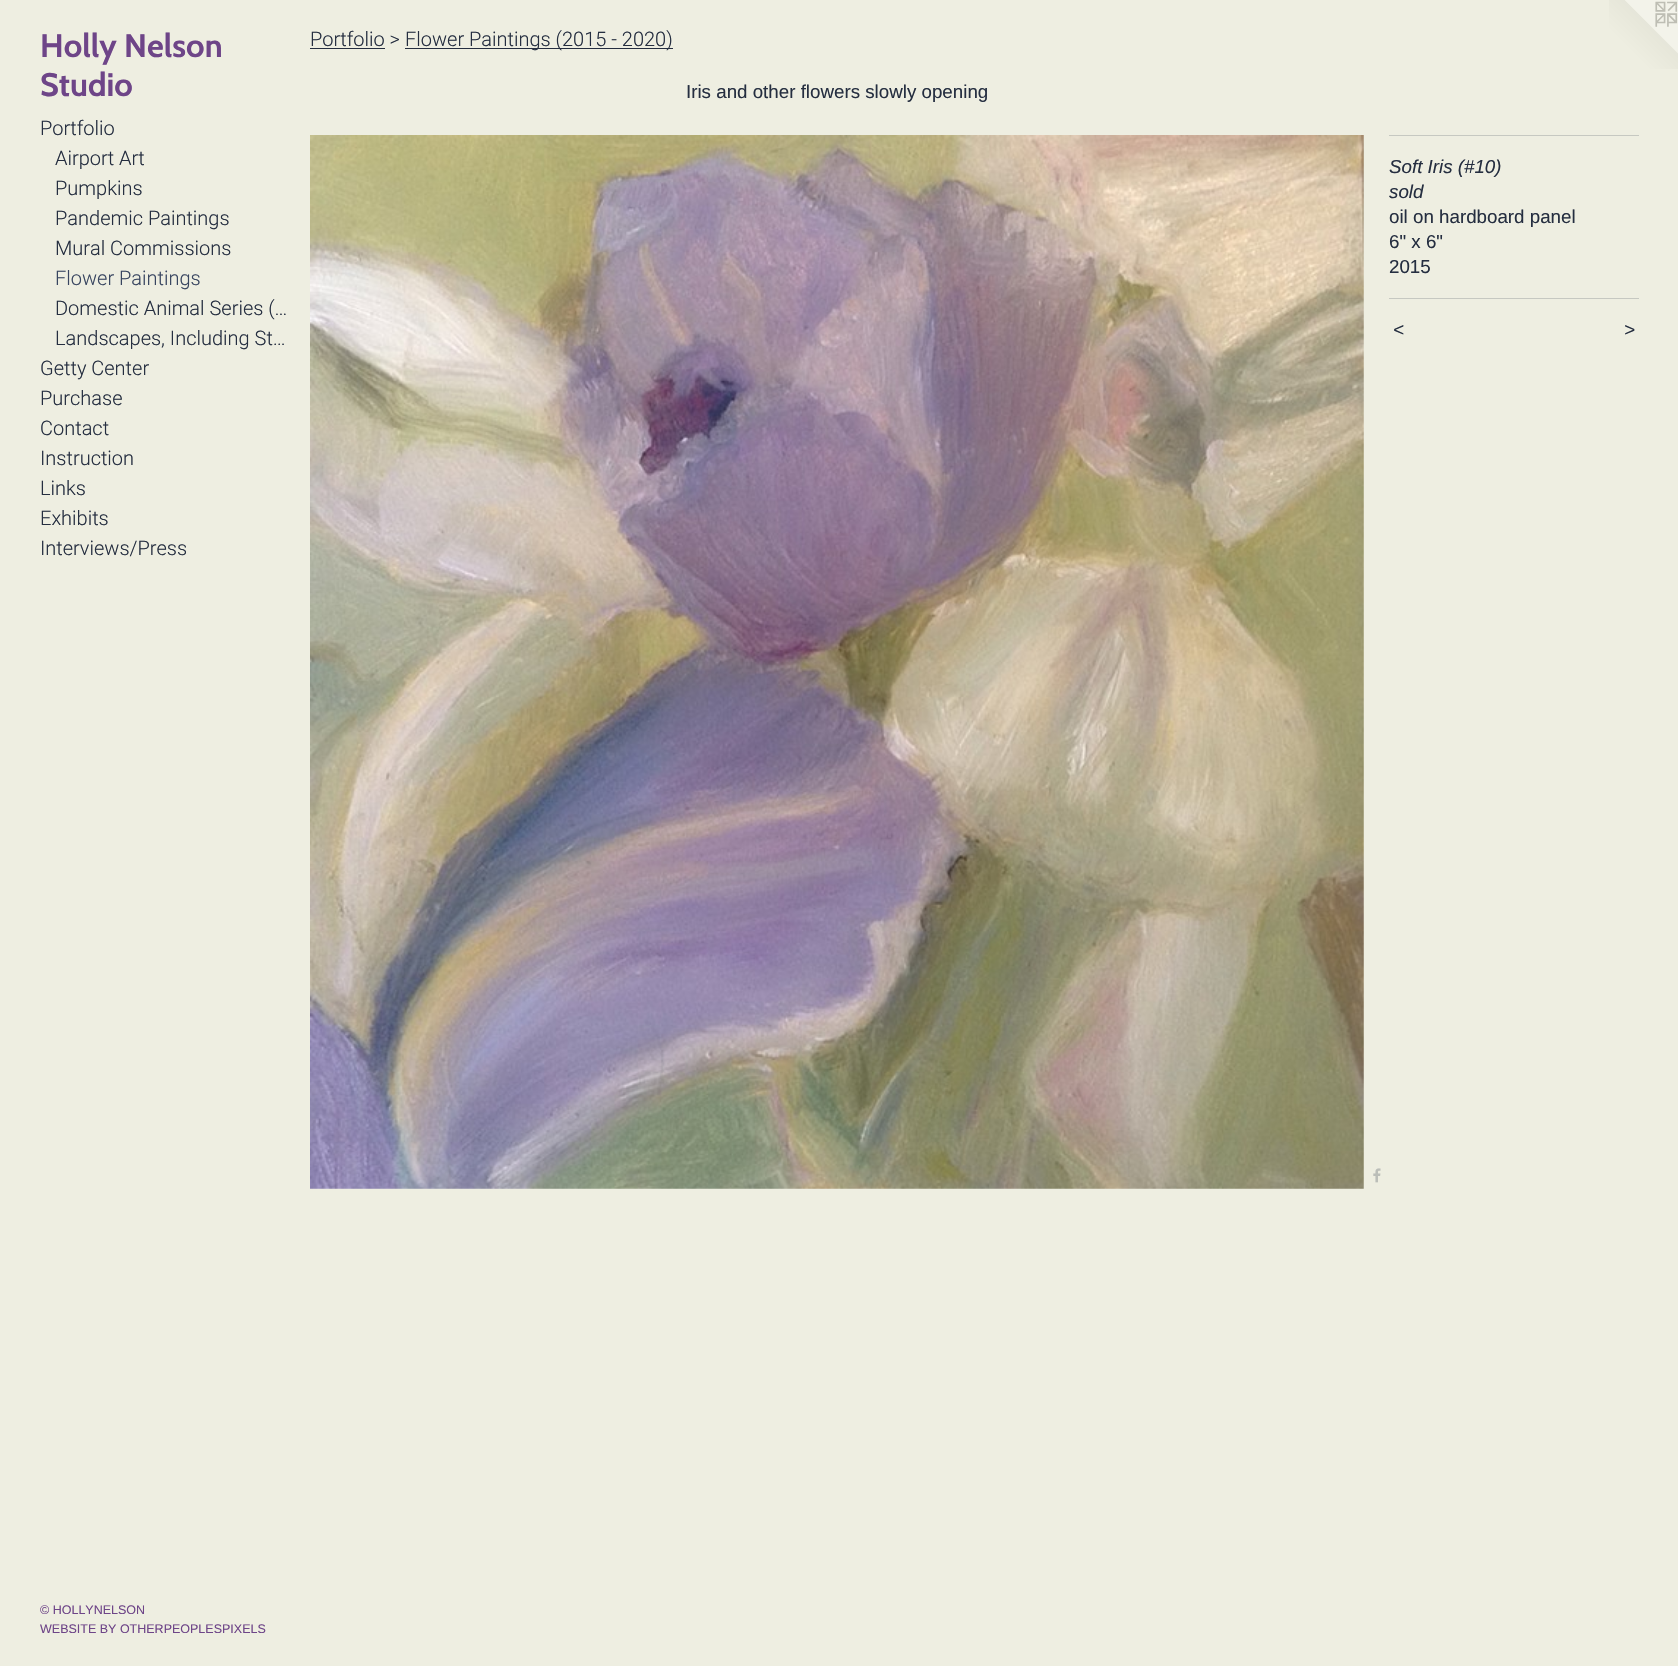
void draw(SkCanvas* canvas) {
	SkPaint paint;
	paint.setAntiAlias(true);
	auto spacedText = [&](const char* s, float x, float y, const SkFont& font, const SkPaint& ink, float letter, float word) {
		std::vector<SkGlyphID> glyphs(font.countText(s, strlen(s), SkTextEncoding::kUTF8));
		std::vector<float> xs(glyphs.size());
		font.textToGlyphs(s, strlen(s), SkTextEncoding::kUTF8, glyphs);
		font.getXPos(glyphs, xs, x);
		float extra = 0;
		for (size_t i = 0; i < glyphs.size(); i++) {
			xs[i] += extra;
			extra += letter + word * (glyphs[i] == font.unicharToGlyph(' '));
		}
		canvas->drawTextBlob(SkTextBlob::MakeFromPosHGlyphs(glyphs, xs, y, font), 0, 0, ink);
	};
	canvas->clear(0xffeeeee1);
	SkFont f1(fontMgr->matchFamilyStyle("Cabin", SkFontStyle::Bold()), 32.5);
	f1.setSubpixel(true);
	paint.setColor(0xff6e4588);
	canvas->drawString("Holly Nelson", 40, 57, f1, paint);
	canvas->drawString("Studio", 40, 96, f1, paint);
	SkFont f2(fontMgr->matchFamilyStyle("Roboto", SkFontStyle(300, SkFontStyle::kNormal_Width, SkFontStyle::kUpright_Slant)), 20);
	f2.setSubpixel(true);
	paint.setColor(0xff252e40);
	canvas->drawString("Portfolio", 40, 135, f2, paint);
	canvas->drawString("Airport Art", 55, 165, f2, paint);
	canvas->drawString("Pumpkins", 55, 195, f2, paint);
	canvas->drawString("Pandemic Paintings", 55, 225, f2, paint);
	canvas->drawString("Mural Commissions", 55, 255, f2, paint);
	paint.setColor(0xff384560);
	canvas->drawString("Flower Paintings", 55, 285, f2, paint);
	paint.setColor(0xff252e40);
	canvas->drawString("Domestic Animal Series (…", 55, 315, f2, paint);
	canvas->drawString("Landscapes, Including St…", 55, 345, f2, paint);
	canvas->drawString("Getty Center", 40, 375, f2, paint);
	canvas->drawString("Purchase", 40, 405, f2, paint);
	canvas->drawString("Contact", 40, 435, f2, paint);
	canvas->drawString("Instruction", 40, 465, f2, paint);
	canvas->drawString("Links", 40, 495, f2, paint);
	canvas->drawString("Exhibits", 40, 525, f2, paint);
	canvas->drawString("Interviews/Press", 40, 555, f2, paint);
	SkFont f3(fontMgr->matchFamilyStyle("Liberation Sans", SkFontStyle::Normal()), 12.5);
	f3.setSubpixel(true);
	paint.setColor(0xff6e4588);
	canvas->drawString("© HOLLYNELSON", 40, 1614, f3, paint);
	canvas->drawString("WEBSITE BY OTHERPEOPLESPIXELS", 40, 1633, f3, paint);
	paint.setColor(0xff252e40);
	canvas->drawString("Portfolio >", 310, 46, f2, paint);
	canvas->drawRect(SkRect::MakeXYWH(310, 48, 75, 1), paint);
	canvas->drawRect(SkRect::MakeXYWH(405, 48, 268, 1), paint);
	canvas->drawString("Flower Paintings (2015 - 2020)", 405, 46, f2, paint);
	SkFont f4(fontMgr->matchFamilyStyle("Liberation Sans", SkFontStyle::Normal()), 18.75);
	f4.setSubpixel(true);
	canvas->drawString("Iris and other flowers slowly opening", 686, 98, f4, paint);
	canvas->drawImageRect(SkImages::DeferredFromEncodedData(SkData::MakeFromFileName("img1.png")), SkRect::MakeXYWH(310, 135, 1054, 1054), SkSamplingOptions());
	canvas->drawImageRect(SkImages::DeferredFromEncodedData(SkData::MakeFromFileName("img2.png")), SkRect::MakeXYWH(1373, 1168, 8, 15), SkSamplingOptions());
	paint.setColor(0xffc6c8c1);
	canvas->drawRect(SkRect::MakeXYWH(1389, 135, 250, 1), paint);
	SkFont f5(fontMgr->matchFamilyStyle("Liberation Sans", SkFontStyle::Italic()), 18.75);
	f5.setSubpixel(true);
	paint.setColor(0xff252e40);
	canvas->drawString("Soft Iris (#10)", 1389, 173, f5, paint);
	canvas->drawString("sold", 1389, 198, f5, paint);
	canvas->drawString("oil on hardboard panel", 1389, 223, f4, paint);
	canvas->drawString("6\" x 6\"", 1389, 248, f4, paint);
	canvas->drawString("2015", 1389, 273, f4, paint);
	paint.setColor(0xffc6c8c1);
	canvas->drawRect(SkRect::MakeXYWH(1389, 298, 250, 1), paint);
	paint.setColor(0xff252e40);
	spacedText("<", 1393, 336, f5, paint, 1, 0);
	spacedText(">", 1624, 336, f5, paint, 1, 0);
	canvas->drawImageRect(SkImages::DeferredFromEncodedData(SkData::MakeFromFileName("img3.png")), SkRect::MakeXYWH(1609, 0, 69, 69), SkSamplingOptions());
}
